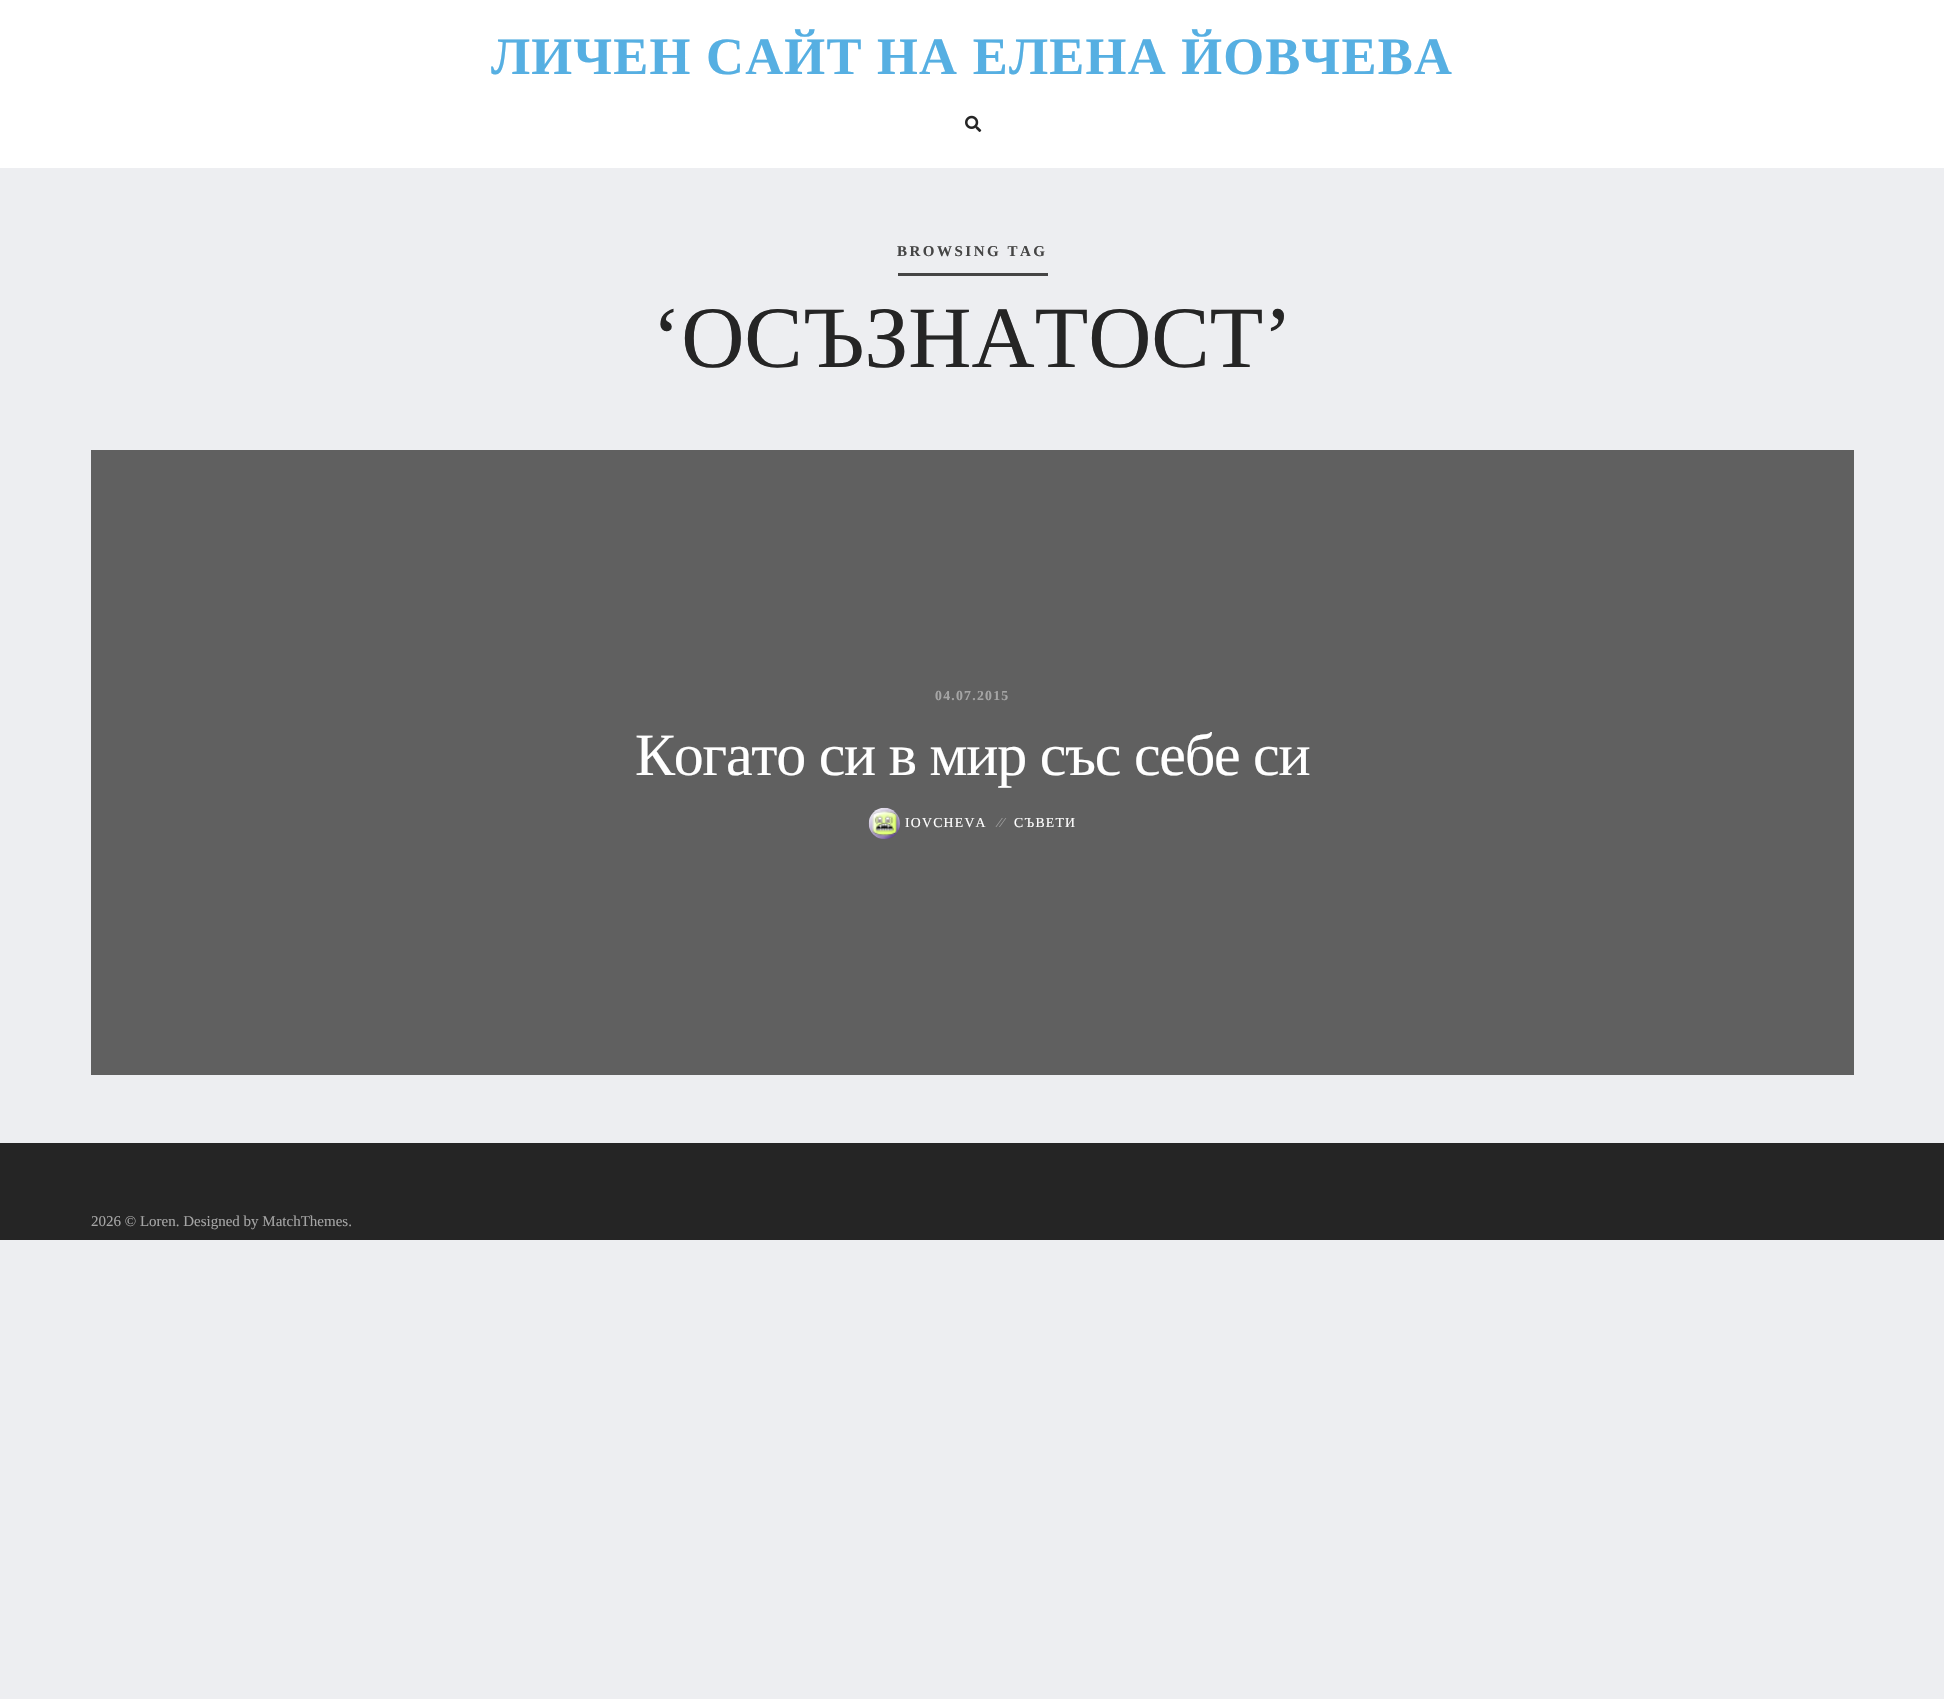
void draw(SkCanvas* canvas) {
	SkPaint paint;
	paint.setAntiAlias(true);
	auto spacedText = [&](const char* s, float x, float y, const SkFont& font, const SkPaint& ink, float letter, float word) {
		std::vector<SkGlyphID> glyphs(font.countText(s, strlen(s), SkTextEncoding::kUTF8));
		std::vector<float> xs(glyphs.size());
		font.textToGlyphs(s, strlen(s), SkTextEncoding::kUTF8, glyphs);
		font.getXPos(glyphs, xs, x);
		float extra = 0;
		for (size_t i = 0; i < glyphs.size(); i++) {
			xs[i] += extra;
			extra += letter + word * (glyphs[i] == font.unicharToGlyph(' '));
		}
		canvas->drawTextBlob(SkTextBlob::MakeFromPosHGlyphs(glyphs, xs, y, font), 0, 0, ink);
	};
	canvas->clear(0xffedeef1);
	paint.setColor(0xffffffff);
	canvas->drawRect(SkRect::MakeXYWH(0, 0, 1944, 168), paint);
	SkFont f1(fontMgr->matchFamilyStyle("Liberation Serif", SkFontStyle::Bold()), 52.5);
	f1.setSubpixel(true);
	paint.setColor(0xff56afe2);
	spacedText("ЛИЧЕН САЙТ НА ЕЛЕНА ЙОВЧЕВА", 491, 74, f1, paint, 1.25, 0);
	canvas->drawImageRect(SkImages::DeferredFromEncodedData(SkData::MakeFromFileName("img1.png")), SkRect::MakeXYWH(965, 115, 17, 17), SkSamplingOptions());
	paint.setColor(0xff454545);
	canvas->drawRect(SkRect::MakeXYWH(898, 273, 150, 3), paint);
	SkFont f2(fontMgr->matchFamilyStyle("Liberation Serif", SkFontStyle::Bold()), 15);
	f2.setSubpixel(true);
	spacedText("BROWSING TAG", 897, 256, f2, paint, 2.5, 0);
	SkFont f3(fontMgr->matchFamilyStyle("Liberation Serif", SkFontStyle::Normal()), 87.5);
	f3.setSubpixel(true);
	paint.setColor(0xff252525);
	canvas->drawString("‘ОСЪЗНАТОСТ’", 652, 367, f3, paint);
	paint.setColor(0xff606060);
	canvas->drawRect(SkRect::MakeXYWH(91, 450, 1763, 625), paint);
	SkFont f4(fontMgr->matchFamilyStyle("Liberation Serif", SkFontStyle::Bold()), 13.75);
	f4.setSubpixel(true);
	paint.setColor(0xffa5a5a5);
	spacedText("04.07.2015", 935, 700, f4, paint, 1.25, 0);
	SkFont f5(fontMgr->matchFamilyStyle("Liberation Serif", SkFontStyle::Normal()), 60);
	f5.setSubpixel(true);
	paint.setColor(0xffffffff);
	spacedText("Когато си в мир със себе си", 635, 775, f5, paint, -1.25, 0);
	canvas->drawImageRect(SkImages::DeferredFromEncodedData(SkData::MakeFromFileName("img2.png")), SkRect::MakeXYWH(868, 807, 32, 32), SkSamplingOptions());
	SkFont f6(fontMgr->matchFamilyStyle("Liberation Serif", SkFontStyle::Normal()), 13.75);
	f6.setSubpixel(true);
	spacedText("IOVCHEVA", 905, 827, f6, paint, 1.25, 0);
	paint.setColor(0xffa5a5a5);
	spacedText("⁄⁄", 998, 827, f6, paint, 1.25, 0);
	paint.setColor(0xffffffff);
	spacedText("СЪВЕТИ", 1014, 827, f6, paint, 1.25, 0);
	paint.setColor(0xff252525);
	canvas->drawRect(SkRect::MakeXYWH(0, 1143, 1944, 97), paint);
	SkFont f7(fontMgr->matchFamilyStyle("Liberation Serif", SkFontStyle::Normal()), 15);
	f7.setSubpixel(true);
	paint.setColor(0xffa5a5a5);
	canvas->drawString("2026 © Loren. Designed by MatchThemes.", 91, 1226, f7, paint);
}
